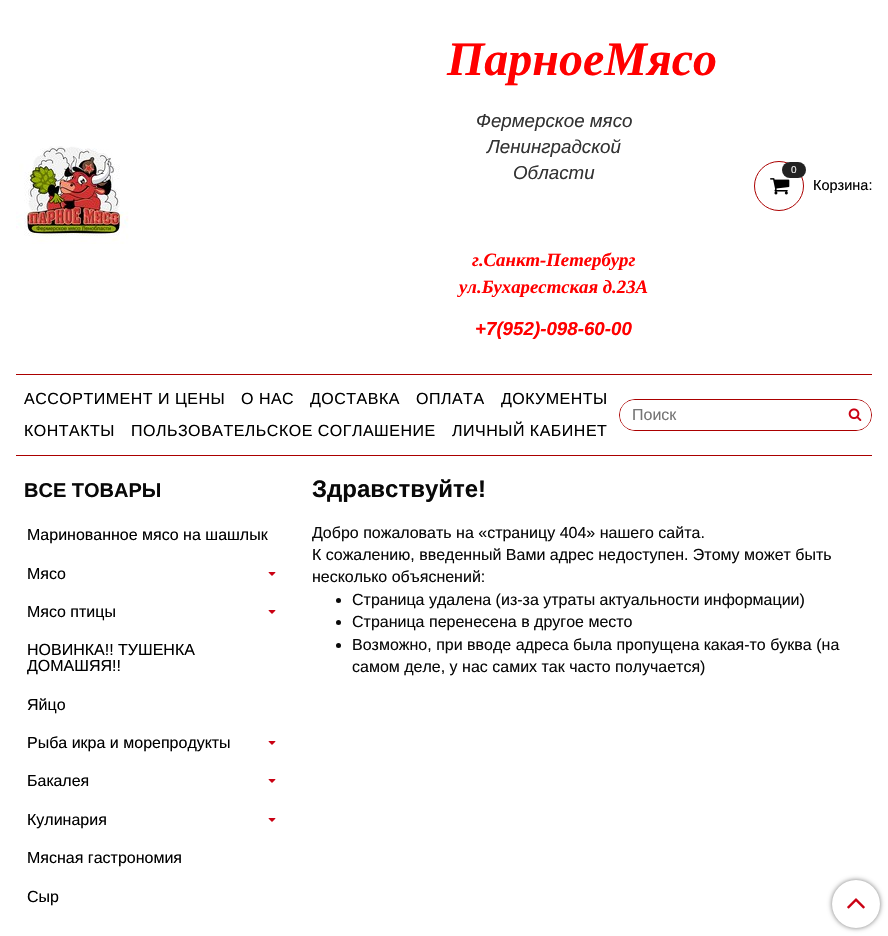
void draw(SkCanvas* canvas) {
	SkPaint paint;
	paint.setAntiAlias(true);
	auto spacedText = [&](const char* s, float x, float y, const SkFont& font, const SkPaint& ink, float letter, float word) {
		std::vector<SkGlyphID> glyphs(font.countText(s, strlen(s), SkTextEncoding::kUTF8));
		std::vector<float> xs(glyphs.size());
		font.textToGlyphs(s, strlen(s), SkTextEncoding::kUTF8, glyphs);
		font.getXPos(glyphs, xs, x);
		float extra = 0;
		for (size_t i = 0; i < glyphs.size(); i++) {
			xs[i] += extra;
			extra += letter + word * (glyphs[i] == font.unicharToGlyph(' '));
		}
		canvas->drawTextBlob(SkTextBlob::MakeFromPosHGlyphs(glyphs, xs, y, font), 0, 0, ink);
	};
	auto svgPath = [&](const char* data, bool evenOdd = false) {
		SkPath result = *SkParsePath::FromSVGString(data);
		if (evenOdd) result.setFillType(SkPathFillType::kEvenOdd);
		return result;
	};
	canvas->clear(0xffffffff);
	canvas->drawImageRect(SkImages::DeferredFromEncodedData(SkData::MakeFromFileName("img1.png")), SkRect::MakeXYWH(16, 146, 113, 98), SkSamplingOptions());
	SkFont f1(fontMgr->matchFamilyStyle("Liberation Serif", SkFontStyle::BoldItalic()), 48);
	f1.setSubpixel(true);
	paint.setColor(0xffff0000);
	canvas->drawString("ПарноеМясо", 447, 75, f1, paint);
	SkFont f2(fontMgr->matchFamilyStyle("Liberation Sans", SkFontStyle::Italic()), 18.75);
	f2.setSubpixel(true);
	paint.setColor(0xff333333);
	canvas->drawString("Фермерское мясо", 476, 127, f2, paint);
	canvas->drawString("Ленинградской", 487, 153, f2, paint);
	canvas->drawString("Области", 513, 179, f2, paint);
	SkFont f3(fontMgr->matchFamilyStyle("Liberation Serif", SkFontStyle::BoldItalic()), 18.75);
	f3.setSubpixel(true);
	paint.setColor(0xffff0000);
	canvas->drawString("г.Санкт-Петербург", 472, 266, f3, paint);
	canvas->drawString("ул.Бухарестская д.23А", 459, 293, f3, paint);
	SkFont f4(fontMgr->matchFamilyStyle("Liberation Sans", SkFontStyle::BoldItalic()), 18.75);
	f4.setSubpixel(true);
	canvas->drawString("+7(952)-098-60-00", 475, 335, f4, paint);
	paint.setStroke(true);
	paint.setStrokeWidth(1);
	paint.setColor(0xffab0000);
	canvas->drawCircle(779, 186, 24.5, paint);
	paint.setStroke(false);
	paint.setColor(0xff222222);
	canvas->drawRoundRect(SkRect::MakeXYWH(782, 162, 24, 16), 8, 8, paint);
	SkFont f5(fontMgr->matchFamilyStyle("Liberation Sans", SkFontStyle::Normal()), 10);
	f5.setSubpixel(true);
	paint.setColor(0xffeeeeee);
	canvas->drawString("0", 791, 173, f5, paint);
	canvas->drawImageRect(SkImages::DeferredFromEncodedData(SkData::MakeFromFileName("img2.png")), SkRect::MakeXYWH(770, 178, 20, 17), SkSamplingOptions());
	SkFont f6(fontMgr->matchFamilyStyle("Liberation Sans", SkFontStyle::Normal()), 14.5);
	f6.setSubpixel(true);
	paint.setColor(0xff000000);
	canvas->drawString("Корзина:", 813, 190, f6, paint);
	paint.setColor(0xffab0000);
	canvas->drawRect(SkRect::MakeXYWH(16, 374, 856, 1), paint);
	canvas->drawRect(SkRect::MakeXYWH(16, 455, 856, 1), paint);
	SkFont f7(fontMgr->matchFamilyStyle("Liberation Sans", SkFontStyle::Normal()), 16);
	f7.setSubpixel(true);
	paint.setColor(0xff000000);
	spacedText("АССОРТИМЕНТ И ЦЕНЫ", 24, 404, f7, paint, 0.5, 0);
	spacedText("О НАС", 241, 404, f7, paint, 0.5, 0);
	spacedText("ДОСТАВКА", 310, 404, f7, paint, 0.5, 0);
	spacedText("ОПЛАТА", 416, 404, f7, paint, 0.5, 0);
	spacedText("ДОКУМЕНТЫ", 501, 404, f7, paint, 0.5, 0);
	spacedText("КОНТАКТЫ", 24, 436, f7, paint, 0.5, 0);
	spacedText("ПОЛЬЗОВАТЕЛЬСКОЕ СОГЛАШЕНИЕ", 131, 436, f7, paint, 0.5, 0);
	spacedText("ЛИЧНЫЙ КАБИНЕТ", 452, 436, f7, paint, 0.5, 0);
	paint.setStroke(true);
	paint.setColor(0xffab0000);
	canvas->drawRoundRect(SkRect::MakeXYWH(619.5, 399.5, 252, 31), 15.5, 15.5, paint);
	paint.setStroke(false);
	paint.setColor(0xffffffff);
	canvas->drawPath(svgPath("M635 400H839V430H635C626.5 430 620 423.5 620 415C620 406.5 626.5 400 635 400Z"), paint);
	paint.setColor(0xff757575);
	canvas->drawString("Поиск", 632, 420, f7, paint);
	paint.setColor(0xffffffff);
	canvas->drawPath(svgPath("M839 400H856C864.5 400 871 406.5 871 415C871 423.5 864.5 430 856 430H839Z"), paint);
	canvas->drawImageRect(SkImages::DeferredFromEncodedData(SkData::MakeFromFileName("img3.png")), SkRect::MakeXYWH(848, 408, 14, 13), SkSamplingOptions());
	SkFont f8(fontMgr->matchFamilyStyle("Liberation Sans", SkFontStyle::Bold()), 20);
	f8.setSubpixel(true);
	paint.setColor(0xff090909);
	canvas->drawString("ВСЕ ТОВАРЫ", 24, 497, f8, paint);
	paint.setColor(0xff000000);
	canvas->drawString("Маринованное мясо на шашлык", 27, 540, f7, paint);
	canvas->drawString("Мясо", 27, 579, f7, paint);
	canvas->drawImageRect(SkImages::DeferredFromEncodedData(SkData::MakeFromFileName("img4.png")), SkRect::MakeXYWH(268, 572, 8, 4), SkSamplingOptions());
	canvas->drawString("Мясо птицы", 27, 617, f7, paint);
	canvas->drawImageRect(SkImages::DeferredFromEncodedData(SkData::MakeFromFileName("img4.png")), SkRect::MakeXYWH(268, 610, 8, 4), SkSamplingOptions());
	canvas->drawString("НОВИНКА!! ТУШЕНКА", 27, 655, f7, paint);
	canvas->drawString("ДОМАШЯЯ!!", 27, 671, f7, paint);
	canvas->drawString("Яйцо", 27, 710, f7, paint);
	canvas->drawString("Рыба икра и морепродукты", 27, 748, f7, paint);
	canvas->drawImageRect(SkImages::DeferredFromEncodedData(SkData::MakeFromFileName("img4.png")), SkRect::MakeXYWH(268, 741, 8, 4), SkSamplingOptions());
	canvas->drawString("Бакалея", 27, 786, f7, paint);
	canvas->drawImageRect(SkImages::DeferredFromEncodedData(SkData::MakeFromFileName("img4.png")), SkRect::MakeXYWH(268, 779, 8, 4), SkSamplingOptions());
	canvas->drawString("Кулинария", 27, 825, f7, paint);
	canvas->drawImageRect(SkImages::DeferredFromEncodedData(SkData::MakeFromFileName("img4.png")), SkRect::MakeXYWH(268, 818, 8, 4), SkSamplingOptions());
	canvas->drawString("Мясная гастрономия", 27, 863, f7, paint);
	canvas->drawString("Сыр", 27, 902, f7, paint);
	SkFont f9(fontMgr->matchFamilyStyle("Liberation Sans", SkFontStyle::Bold()), 24);
	f9.setSubpixel(true);
	paint.setColor(0xff090909);
	canvas->drawString("Здравствуйте!", 312, 497, f9, paint);
	canvas->drawString("Добро пожаловать на «страницу 404» нашего сайта.", 312, 538, f7, paint);
	canvas->drawString("К сожалению, введенный Вами адрес недоступен. Этому может быть", 312, 560, f7, paint);
	canvas->drawString("несколько объяснений:", 312, 582, f7, paint);
	canvas->drawCircle(338.5, 600.5, 2.5, paint);
	canvas->drawString("Страница удалена (из-за утраты актуальности информации)", 352, 605, f7, paint);
	canvas->drawCircle(338.5, 622.5, 2.5, paint);
	canvas->drawString("Страница перенесена в другое место", 352, 627, f7, paint);
	canvas->drawCircle(338.5, 645.5, 2.5, paint);
	canvas->drawString("Возможно, при вводе адреса была пропущена какая-то буква (на", 352, 650, f7, paint);
	canvas->drawString("самом деле, у нас самих так часто получается)", 352, 672, f7, paint);
	paint.setColor(0xff777777);
	paint.setMaskFilter(SkMaskFilter::MakeBlur(kNormal_SkBlurStyle, 2.5));
	canvas->drawRoundRect(SkRect::MakeXYWH(832, 880, 48, 48), 24, 24, paint);
	paint.setMaskFilter(nullptr);
	paint.setColor(0xffffffff);
	canvas->drawCircle(856, 904, 24, paint);
	canvas->drawImageRect(SkImages::DeferredFromEncodedData(SkData::MakeFromFileName("img5.png")), SkRect::MakeXYWH(847, 898, 18, 11), SkSamplingOptions());
}
